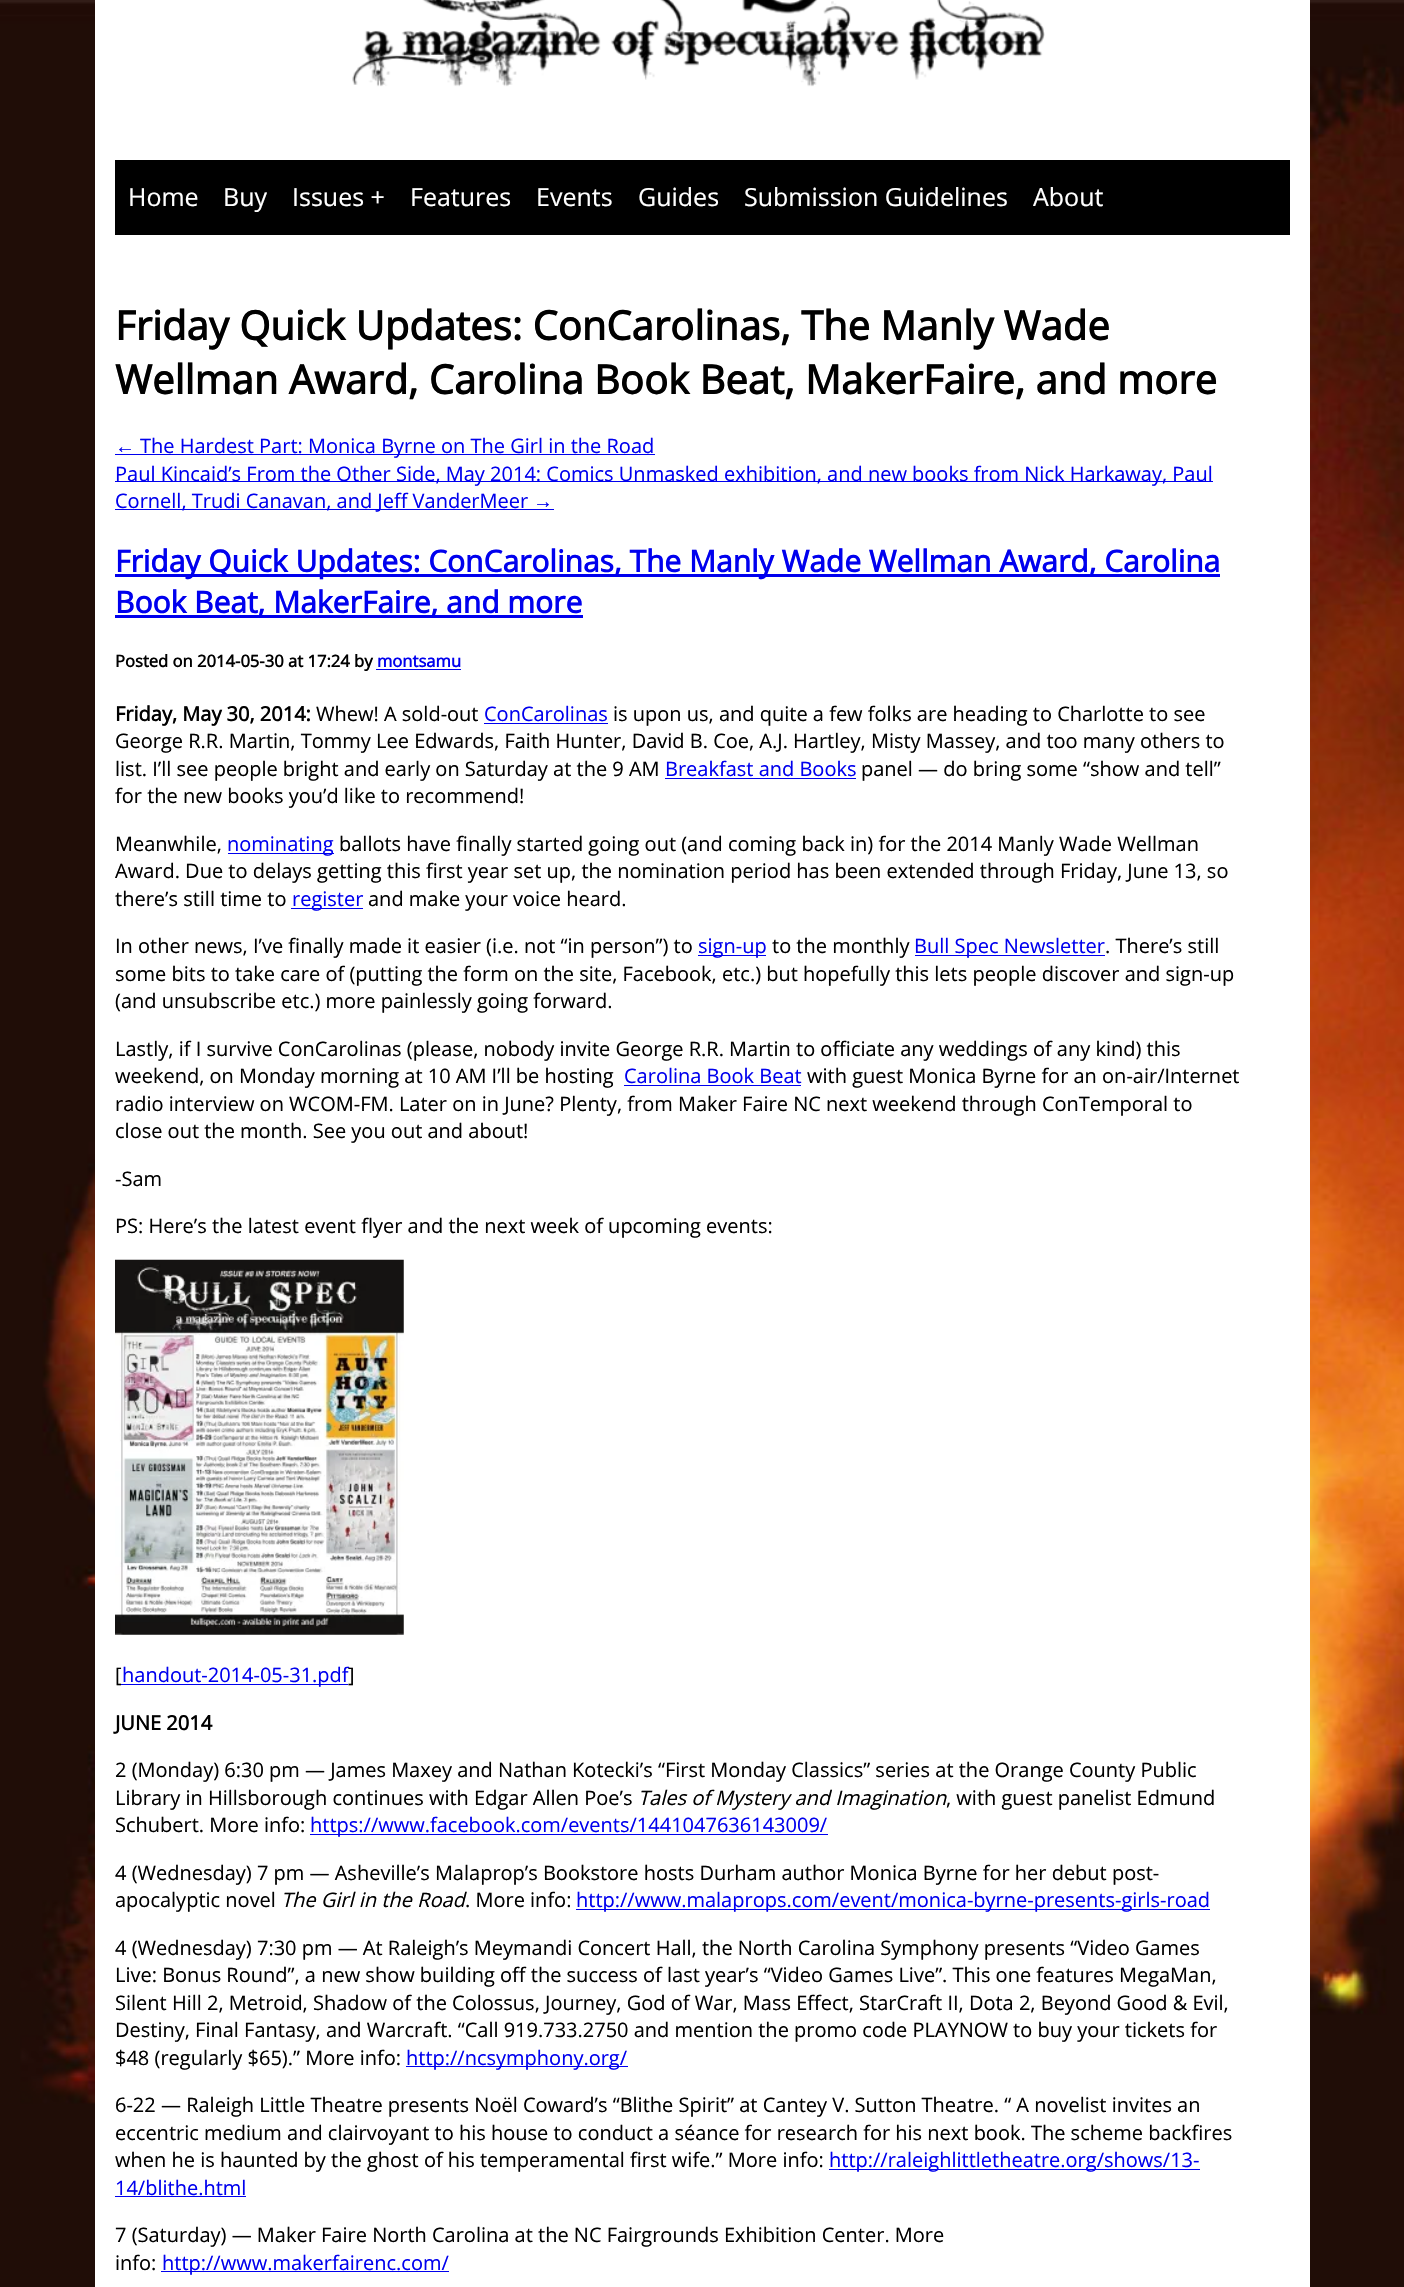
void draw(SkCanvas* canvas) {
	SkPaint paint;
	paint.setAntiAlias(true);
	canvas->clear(0xffffffff);
	canvas->drawImageRect(SkImages::DeferredFromEncodedData(SkData::MakeFromFileName("img1.png")), SkRect::MakeXYWH(0, 0, 1404, 2287), SkSamplingOptions());
	paint.setColor(0xffffffff);
	canvas->drawRect(SkRect::MakeXYWH(95, 0, 1215, 2287), paint);
	canvas->drawImageRect(SkImages::DeferredFromEncodedData(SkData::MakeFromFileName("img2.png")), SkRect::MakeXYWH(352, 0, 693, 87), SkSamplingOptions());
	paint.setColor(0xff000000);
	canvas->drawRect(SkRect::MakeXYWH(115, 160, 1175, 75), paint);
	SkFont f1(fontMgr->matchFamilyStyle("Open Sans", SkFontStyle::Normal()), 25);
	f1.setSubpixel(true);
	paint.setColor(0xffffffff);
	canvas->drawString("Home", 128, 206, f1, paint);
	canvas->drawString("Buy", 223, 206, f1, paint);
	canvas->drawString("Issues +", 292, 206, f1, paint);
	canvas->drawString("Features", 410, 206, f1, paint);
	canvas->drawString("Events", 536, 206, f1, paint);
	canvas->drawString("Guides", 638, 206, f1, paint);
	canvas->drawString("Submission Guidelines", 744, 206, f1, paint);
	canvas->drawString("About", 1033, 206, f1, paint);
	SkFont f2(fontMgr->matchFamilyStyle("Open Sans", SkFontStyle::Bold()), 40);
	f2.setSubpixel(true);
	paint.setColor(0xff000000);
	canvas->drawString("Friday Quick Updates: ConCarolinas, The Manly Wade", 115, 340, f2, paint);
	canvas->drawString("Wellman Award, Carolina Book Beat, MakerFaire, and more", 115, 394, f2, paint);
	SkFont f3(fontMgr->matchFamilyStyle("Liberation Sans", SkFontStyle::Normal()), 20);
	f3.setSubpixel(true);
	paint.setColor(0xff0000ee);
	canvas->drawString("←", 115, 453, f3, paint);
	canvas->drawRect(SkRect::MakeXYWH(115, 454, 540, 1), paint);
	SkFont f4(fontMgr->matchFamilyStyle("Open Sans", SkFontStyle::Normal()), 20);
	f4.setSubpixel(true);
	canvas->drawString("The Hardest Part: Monica Byrne on The Girl in the Road", 140, 453, f4, paint);
	canvas->drawRect(SkRect::MakeXYWH(115, 481, 1098, 1), paint);
	canvas->drawString("Paul Kincaid’s From the Other Side, May 2014: Comics Unmasked exhibition, and new books from Nick Harkaway, Paul", 115, 481, f4, paint);
	canvas->drawRect(SkRect::MakeXYWH(115, 509, 439, 1), paint);
	canvas->drawString("Cornell, Trudi Canavan, and Jeff VanderMeer", 115, 508, f4, paint);
	canvas->drawString("→", 533, 508, f3, paint);
	canvas->drawRect(SkRect::MakeXYWH(115, 574, 1105, 3), paint);
	SkFont f5(fontMgr->matchFamilyStyle("Open Sans", SkFontStyle::Bold()), 30);
	f5.setSubpixel(true);
	canvas->drawString("Friday Quick Updates: ConCarolinas, The Manly Wade Wellman Award, Carolina", 115, 572, f5, paint);
	canvas->drawRect(SkRect::MakeXYWH(115, 615, 468, 3), paint);
	canvas->drawString("Book Beat, MakerFaire, and more", 115, 613, f5, paint);
	SkFont f6(fontMgr->matchFamilyStyle("Open Sans", SkFontStyle::Bold()), 16.6);
	f6.setSubpixel(true);
	paint.setColor(0xff000000);
	canvas->drawString("Posted on 2014-05-30 at 17:24 by", 115, 667, f6, paint);
	paint.setColor(0xff0000ee);
	canvas->drawString("montsamu", 377, 667, f6, paint);
	canvas->drawRect(SkRect::MakeXYWH(376, 669, 85, 1), paint);
	SkFont f7(fontMgr->matchFamilyStyle("Open Sans", SkFontStyle::Bold()), 20);
	f7.setSubpixel(true);
	paint.setColor(0xff000000);
	canvas->drawString("Friday, May 30, 2014:", 115, 721, f7, paint);
	canvas->drawString("Whew! A sold-out", 316, 721, f4, paint);
	paint.setColor(0xff0000ee);
	canvas->drawString("ConCarolinas", 484, 721, f4, paint);
	canvas->drawRect(SkRect::MakeXYWH(484, 723, 124, 1), paint);
	paint.setColor(0xff000000);
	canvas->drawString("is upon us, and quite a few folks are heading to Charlotte to see", 613, 721, f4, paint);
	canvas->drawString("George R.R. Martin, Tommy Lee Edwards, Faith Hunter, David B. Coe, A.J. Hartley, Misty Massey, and too many others to", 115, 748, f4, paint);
	canvas->drawString("list. I’ll see people bright and early on Saturday at the 9 AM", 115, 776, f4, paint);
	paint.setColor(0xff0000ee);
	canvas->drawString("Breakfast and Books", 665, 776, f4, paint);
	canvas->drawRect(SkRect::MakeXYWH(665, 778, 191, 1), paint);
	paint.setColor(0xff000000);
	canvas->drawString("panel — do bring some “show and tell”", 861, 776, f4, paint);
	canvas->drawString("for the new books you’d like to recommend!", 115, 803, f4, paint);
	canvas->drawString("Meanwhile,", 115, 851, f4, paint);
	paint.setColor(0xff0000ee);
	canvas->drawRect(SkRect::MakeXYWH(228, 853, 106, 1), paint);
	canvas->drawString("nominating", 227, 851, f4, paint);
	paint.setColor(0xff000000);
	canvas->drawString("ballots have finally started going out (and coming back in) for the 2014 Manly Wade Wellman", 339, 851, f4, paint);
	canvas->drawString("Award. Due to delays getting this first year set up, the nomination period has been extended through Friday, June 13, so", 115, 878, f4, paint);
	canvas->drawString("there’s still time to", 115, 906, f4, paint);
	paint.setColor(0xff0000ee);
	canvas->drawRect(SkRect::MakeXYWH(291, 908, 72, 1), paint);
	canvas->drawString("register", 292, 906, f4, paint);
	paint.setColor(0xff000000);
	canvas->drawString("and make your voice heard.", 368, 906, f4, paint);
	canvas->drawString("In other news, I’ve finally made it easier (i.e. not “in person”) to", 115, 953, f4, paint);
	paint.setColor(0xff0000ee);
	canvas->drawRect(SkRect::MakeXYWH(698, 955, 68, 1), paint);
	canvas->drawString("sign-up", 698, 953, f4, paint);
	paint.setColor(0xff000000);
	canvas->drawString("to the monthly", 772, 953, f4, paint);
	paint.setColor(0xff0000ee);
	canvas->drawRect(SkRect::MakeXYWH(915, 955, 190, 1), paint);
	canvas->drawString("Bull Spec Newsletter", 914, 953, f4, paint);
	paint.setColor(0xff000000);
	canvas->drawString(". There’s still", 1105, 953, f4, paint);
	canvas->drawString("some bits to take care of (putting the form on the site, Facebook, etc.) but hopefully this lets people discover and sign-up", 115, 981, f4, paint);
	canvas->drawString("(and unsubscribe etc.) more painlessly going forward.", 115, 1008, f4, paint);
	canvas->drawString("Lastly, if I survive ConCarolinas (please, nobody invite George R.R. Martin to officiate any weddings of any kind) this", 115, 1056, f4, paint);
	canvas->drawString("weekend, on Monday morning at 10 AM I’ll be hosting", 115, 1083, f4, paint);
	paint.setColor(0xff0000ee);
	canvas->drawString("Carolina Book Beat", 624, 1083, f4, paint);
	canvas->drawRect(SkRect::MakeXYWH(624, 1085, 177, 1), paint);
	paint.setColor(0xff000000);
	canvas->drawString("with guest Monica Byrne for an on-air/Internet", 807, 1083, f4, paint);
	canvas->drawString("radio interview on WCOM-FM. Later on in June? Plenty, from Maker Faire NC next weekend through ConTemporal to", 115, 1111, f4, paint);
	canvas->drawString("close out the month. See you out and about!", 115, 1138, f4, paint);
	canvas->drawString("-Sam", 115, 1186, f4, paint);
	canvas->drawString("PS: Here’s the latest event flyer and the next week of upcoming events:", 115, 1233, f4, paint);
	canvas->drawImageRect(SkImages::DeferredFromEncodedData(SkData::MakeFromFileName("img3.png")), SkRect::MakeXYWH(115, 1259, 289, 376), SkSamplingOptions());
	canvas->drawString("[", 115, 1682, f4, paint);
	paint.setColor(0xff0000ee);
	canvas->drawRect(SkRect::MakeXYWH(121, 1684, 227, 1), paint);
	canvas->drawString("handout-2014-05-31.pdf", 122, 1682, f4, paint);
	paint.setColor(0xff000000);
	canvas->drawString("]", 348, 1682, f4, paint);
	canvas->drawString("JUNE 2014", 115, 1730, f7, paint);
	canvas->drawString("2 (Monday) 6:30 pm — James Maxey and Nathan Kotecki’s “First Monday Classics” series at the Orange County Public", 115, 1777, f4, paint);
	canvas->drawString("Library in Hillsborough continues with Edgar Allen Poe’s", 115, 1805, f4, paint);
	SkFont f8(fontMgr->matchFamilyStyle("Open Sans", SkFontStyle::Italic()), 20);
	f8.setSubpixel(true);
	canvas->drawString("Tales of Mystery and Imagination", 638, 1805, f8, paint);
	canvas->drawString(", with guest panelist Edmund", 946, 1805, f4, paint);
	canvas->drawString("Schubert. More info:", 115, 1832, f4, paint);
	paint.setColor(0xff0000ee);
	canvas->drawRect(SkRect::MakeXYWH(310, 1834, 518, 1), paint);
	canvas->drawString("https://www.facebook.com/events/1441047636143009/", 310, 1832, f4, paint);
	paint.setColor(0xff000000);
	canvas->drawString("4 (Wednesday) 7 pm — Asheville’s Malaprop’s Bookstore hosts Durham author Monica Byrne for her debut post-", 115, 1880, f4, paint);
	canvas->drawString("apocalyptic novel", 115, 1907, f4, paint);
	canvas->drawString("The Girl in the Road", 281, 1907, f8, paint);
	canvas->drawString(". More info:", 465, 1907, f4, paint);
	paint.setColor(0xff0000ee);
	canvas->drawRect(SkRect::MakeXYWH(576, 1909, 634, 1), paint);
	canvas->drawString("http://www.malaprops.com/event/monica-byrne-presents-girls-road", 576, 1907, f4, paint);
	paint.setColor(0xff000000);
	canvas->drawString("4 (Wednesday) 7:30 pm — At Raleigh’s Meymandi Concert Hall, the North Carolina Symphony presents “Video Games", 115, 1955, f4, paint);
	canvas->drawString("Live: Bonus Round”, a new show building off the success of last year’s “Video Games Live”. This one features MegaMan,", 115, 1982, f4, paint);
	canvas->drawString("Silent Hill 2, Metroid, Shadow of the Colossus, Journey, God of War, Mass Effect, StarCraft II, Dota 2, Beyond Good & Evil,", 115, 2010, f4, paint);
	canvas->drawString("Destiny, Final Fantasy, and Warcraft. “Call 919.733.2750 and mention the promo code PLAYNOW to buy your tickets for", 115, 2037, f4, paint);
	canvas->drawString("$48 (regularly $65).” More info:", 115, 2065, f4, paint);
	paint.setColor(0xff0000ee);
	canvas->drawRect(SkRect::MakeXYWH(406, 2066, 222, 1), paint);
	canvas->drawString("http://ncsymphony.org/", 406, 2065, f4, paint);
	paint.setColor(0xff000000);
	canvas->drawString("6-22 — Raleigh Little Theatre presents Noël Coward’s “Blithe Spirit” at Cantey V. Sutton Theatre. “ A novelist invites an", 115, 2112, f4, paint);
	canvas->drawString("eccentric medium and clairvoyant to his house to conduct a séance for research for his next book. The scheme backfires", 115, 2140, f4, paint);
	canvas->drawString("when he is haunted by the ghost of his temperamental first wife.” More info:", 115, 2167, f4, paint);
	paint.setColor(0xff0000ee);
	canvas->drawRect(SkRect::MakeXYWH(829, 2169, 371, 1), paint);
	canvas->drawString("http://raleighlittletheatre.org/shows/13-", 829, 2167, f4, paint);
	canvas->drawString("14/blithe.html", 115, 2195, f4, paint);
	canvas->drawRect(SkRect::MakeXYWH(115, 2196, 131, 1), paint);
	paint.setColor(0xff000000);
	canvas->drawString("7 (Saturday) — Maker Faire North Carolina at the NC Fairgrounds Exhibition Center. More", 115, 2242, f4, paint);
	canvas->drawString("info:", 115, 2270, f4, paint);
	paint.setColor(0xff0000ee);
	canvas->drawRect(SkRect::MakeXYWH(161, 2271, 288, 1), paint);
	canvas->drawString("http://www.makerfairenc.com/", 162, 2270, f4, paint);
}
